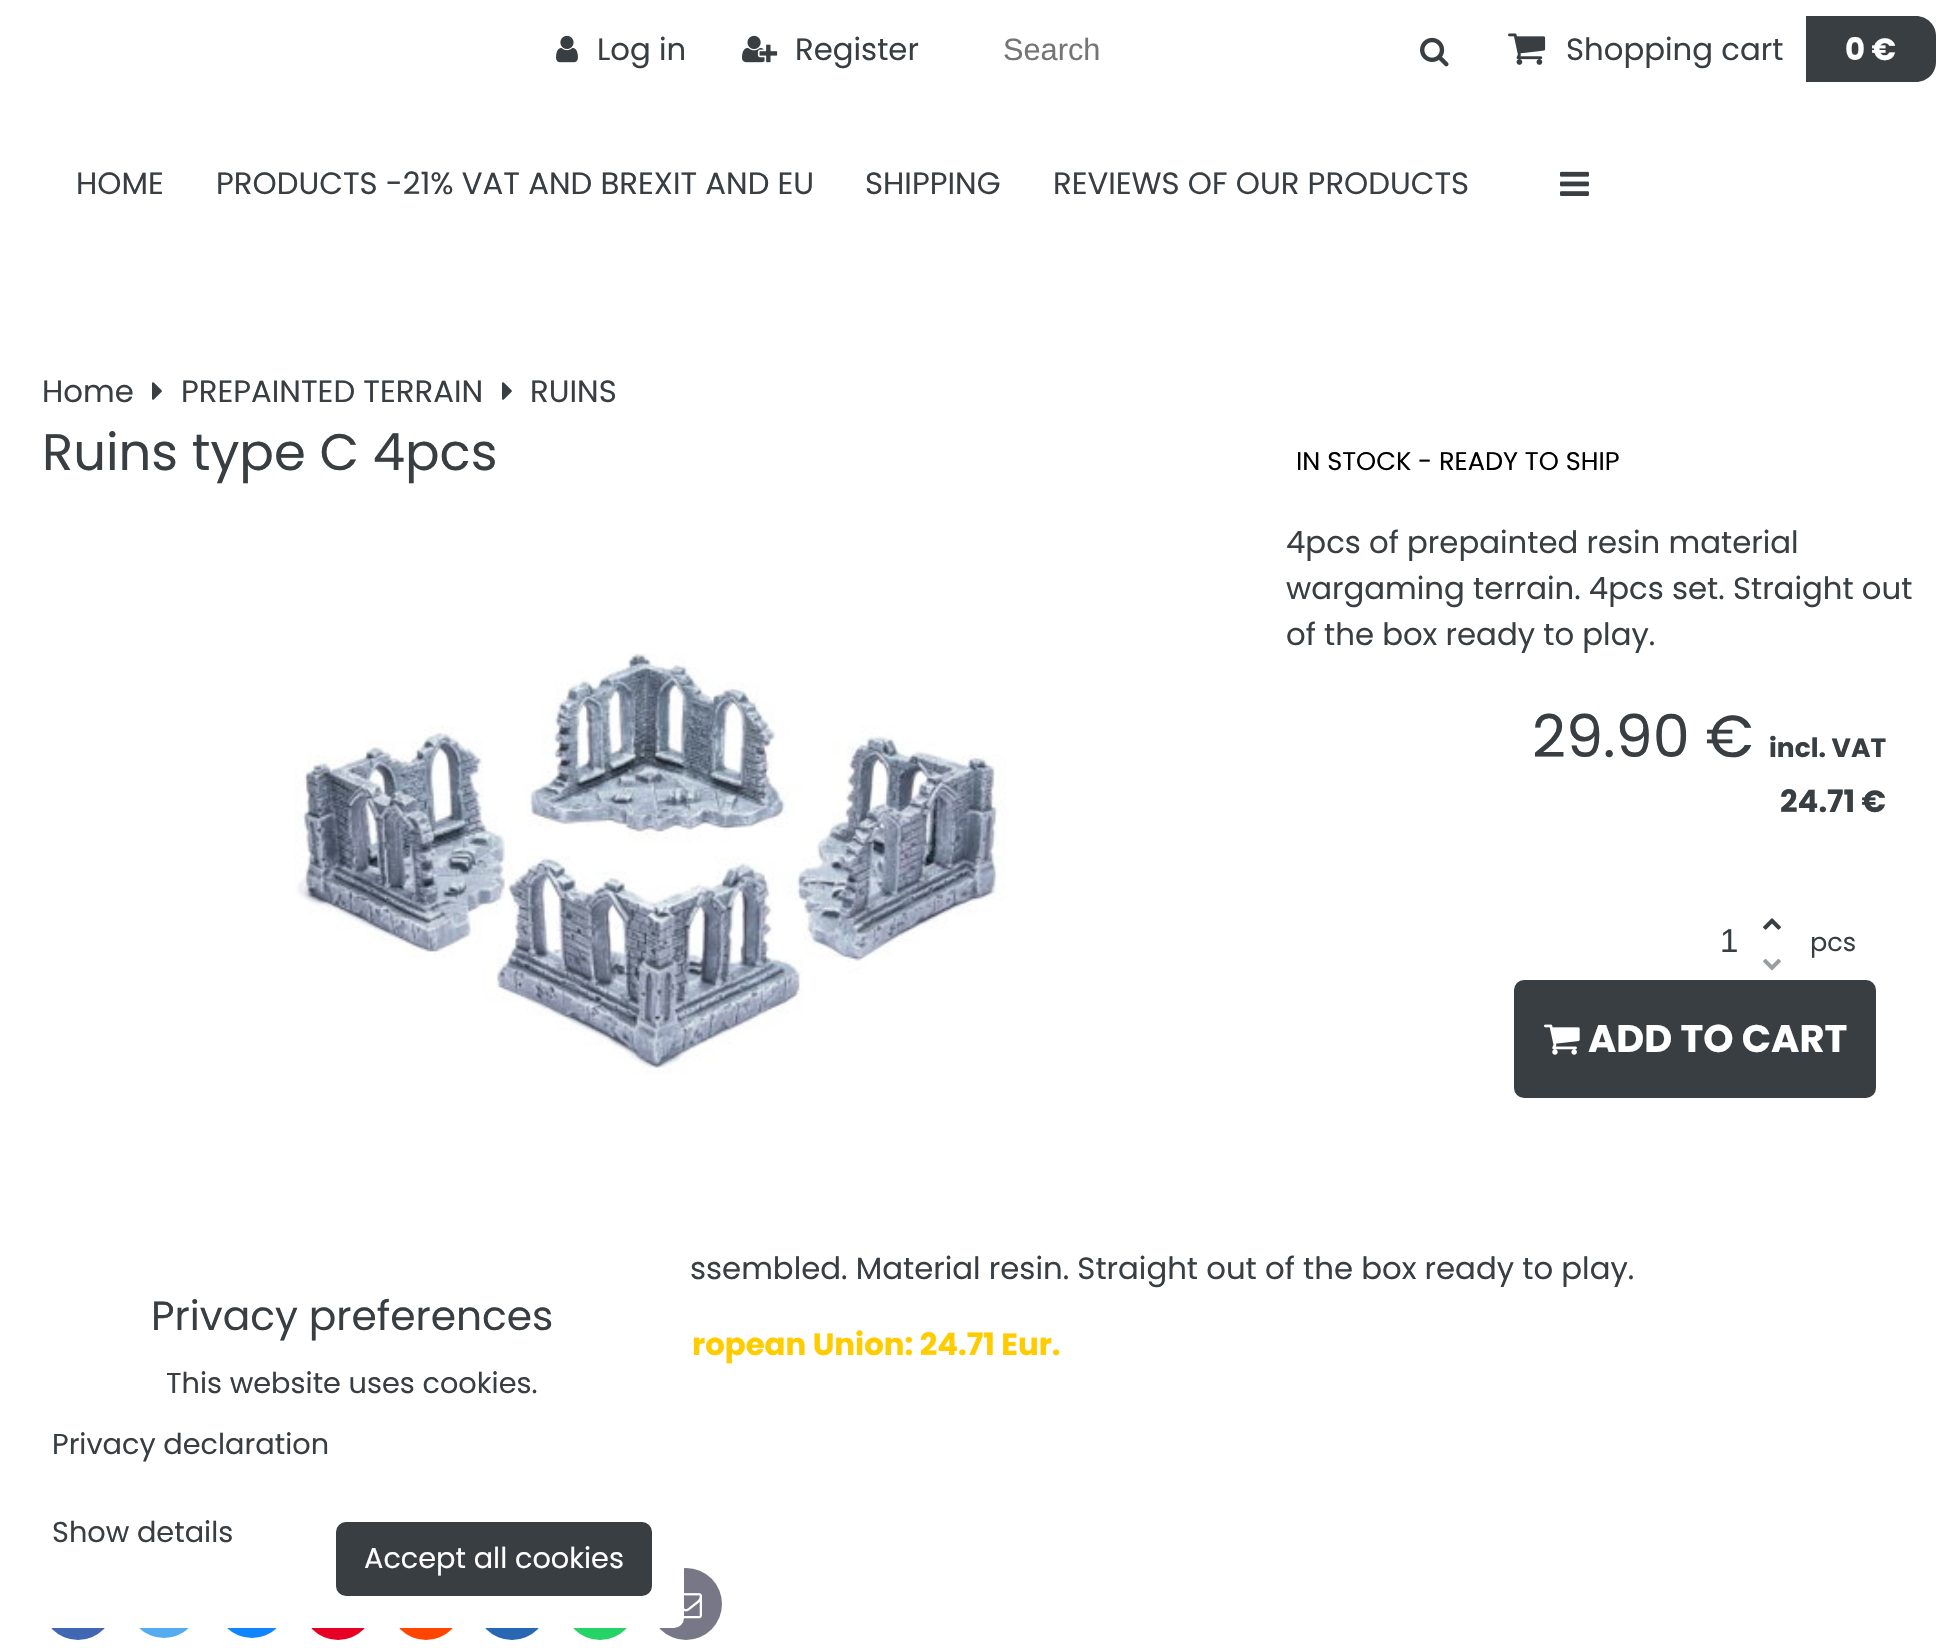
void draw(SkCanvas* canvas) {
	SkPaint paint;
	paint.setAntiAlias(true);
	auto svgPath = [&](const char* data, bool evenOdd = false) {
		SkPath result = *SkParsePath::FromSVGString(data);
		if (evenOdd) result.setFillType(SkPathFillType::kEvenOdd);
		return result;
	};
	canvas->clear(0xffffffff);
	canvas->drawImageRect(SkImages::DeferredFromEncodedData(SkData::MakeFromFileName("img1.png")), SkRect::MakeXYWH(556, 35, 22, 28), SkSamplingOptions());
	SkFont f1(fontMgr->matchFamilyStyle("Poppins", SkFontStyle::Normal()), 30.75);
	f1.setSubpixel(true);
	paint.setColor(0xff383e42);
	canvas->drawString("Log in", 597, 60, f1, paint);
	canvas->drawImageRect(SkImages::DeferredFromEncodedData(SkData::MakeFromFileName("img2.png")), SkRect::MakeXYWH(742, 35, 36, 28), SkSamplingOptions());
	canvas->drawString("Register", 795, 60, f1, paint);
	SkFont f2(fontMgr->matchFamilyStyle("Liberation Sans", SkFontStyle::Normal()), 30.75);
	f2.setSubpixel(true);
	paint.setColor(0xff757575);
	canvas->drawString("Search", 1003, 60, f2, paint);
	canvas->drawImageRect(SkImages::DeferredFromEncodedData(SkData::MakeFromFileName("img3.png")), SkRect::MakeXYWH(1420, 37, 29, 30), SkSamplingOptions());
	canvas->drawImageRect(SkImages::DeferredFromEncodedData(SkData::MakeFromFileName("img4.png")), SkRect::MakeXYWH(1508, 33, 38, 32), SkSamplingOptions());
	paint.setColor(0xff383e42);
	canvas->drawString("Shopping cart", 1566, 60, f1, paint);
	canvas->drawPath(svgPath("M1804 16H1916C1927 16 1936 25 1936 36V62C1936 73 1927 82 1916 82H1804Z"), paint);
	paint.setColor(0xffffffff);
	canvas->drawRect(SkRect::MakeXYWH(1804, 16, 2, 66), paint);
	SkFont f3(fontMgr->matchFamilyStyle("Poppins", SkFontStyle::Bold()), 30.75);
	f3.setSubpixel(true);
	canvas->drawString("0 €", 1845, 60, f3, paint);
	paint.setColor(0xff383e42);
	canvas->drawString("HOME", 76, 194, f1, paint);
	canvas->drawString("PRODUCTS -21% VAT AND BREXIT AND EU", 216, 194, f1, paint);
	canvas->drawString("SHIPPING", 865, 194, f1, paint);
	canvas->drawString("REVIEWS OF OUR PRODUCTS", 1053, 194, f1, paint);
	canvas->drawImageRect(SkImages::DeferredFromEncodedData(SkData::MakeFromFileName("img5.png")), SkRect::MakeXYWH(1560, 171, 29, 25), SkSamplingOptions());
	canvas->drawString("Home", 42, 402, f1, paint);
	canvas->drawImageRect(SkImages::DeferredFromEncodedData(SkData::MakeFromFileName("img6.png")), SkRect::MakeXYWH(152, 382, 10, 18), SkSamplingOptions());
	canvas->drawString("PREPAINTED TERRAIN", 181, 402, f1, paint);
	canvas->drawImageRect(SkImages::DeferredFromEncodedData(SkData::MakeFromFileName("img6.png")), SkRect::MakeXYWH(502, 382, 10, 18), SkSamplingOptions());
	canvas->drawString("RUINS", 530, 402, f1, paint);
	SkFont f4(fontMgr->matchFamilyStyle("Poppins", SkFontStyle::Normal()), 51.25);
	f4.setSubpixel(true);
	canvas->drawString("Ruins type C 4pcs", 42, 470, f4, paint);
	canvas->drawImageRect(SkImages::DeferredFromEncodedData(SkData::MakeFromFileName("img7.png")), SkRect::MakeXYWH(294, 653, 712, 422), SkSamplingOptions());
	SkFont f5(fontMgr->matchFamilyStyle("Poppins", SkFontStyle::Normal()), 25.6);
	f5.setSubpixel(true);
	paint.setColor(0xff000000);
	canvas->drawString("IN STOCK - READY TO SHIP", 1296, 470, f5, paint);
	paint.setColor(0xff383e42);
	canvas->drawString("4pcs of prepainted resin material", 1286, 553, f1, paint);
	canvas->drawString("wargaming terrain. 4pcs set. Straight out", 1286, 599, f1, paint);
	canvas->drawString("of the box ready to play.", 1286, 645, f1, paint);
	SkFont f6(fontMgr->matchFamilyStyle("Poppins", SkFontStyle::Normal()), 59);
	f6.setSubpixel(true);
	canvas->drawString("29.90 €", 1532, 757, f6, paint);
	SkFont f7(fontMgr->matchFamilyStyle("Poppins", SkFontStyle::Bold()), 26.5);
	f7.setSubpixel(true);
	canvas->drawString("incl. VAT", 1769, 757, f7, paint);
	canvas->drawString("24.71 €", 1780, 812, f3, paint);
	SkFont f8(fontMgr->matchFamilyStyle("Liberation Sans", SkFontStyle::Normal()), 33);
	f8.setSubpixel(true);
	canvas->drawString("1", 1720, 952, f8, paint);
	canvas->drawImageRect(SkImages::DeferredFromEncodedData(SkData::MakeFromFileName("img8.png")), SkRect::MakeXYWH(1763, 918, 18, 12), SkSamplingOptions());
	canvas->drawImageRect(SkImages::DeferredFromEncodedData(SkData::MakeFromFileName("img9.png")), SkRect::MakeXYWH(1763, 958, 18, 13), SkSamplingOptions());
	canvas->drawString("pcs", 1810, 951, f5, paint);
	canvas->drawRoundRect(SkRect::MakeXYWH(1514, 980, 362, 118), 10, 10, paint);
	canvas->drawImageRect(SkImages::DeferredFromEncodedData(SkData::MakeFromFileName("img10.png")), SkRect::MakeXYWH(1544, 1024, 36, 31), SkSamplingOptions());
	SkFont f9(fontMgr->matchFamilyStyle("Poppins", SkFontStyle::Bold()), 38.5);
	f9.setSubpixel(true);
	paint.setColor(0xffffffff);
	canvas->drawString("ADD TO CART", 1588, 1052, f9, paint);
	paint.setColor(0xff383e42);
	canvas->drawString("ssembled. Material resin. Straight out of the box ready to play.", 690, 1279, f1, paint);
	paint.setColor(0xffffcc00);
	canvas->drawString("ropean Union: 24.71 Eur.", 692, 1355, f3, paint);
	paint.setColor(0xff4267b2);
	canvas->drawCircle(78, 1604, 36, paint);
	paint.setColor(0xff55acee);
	canvas->drawCircle(164, 1602, 36, paint);
	paint.setColor(0xff1185fe);
	canvas->drawCircle(252, 1602, 36, paint);
	paint.setColor(0xffe60023);
	canvas->drawCircle(338, 1604, 36, paint);
	paint.setColor(0xffff4500);
	canvas->drawCircle(426, 1604, 36, paint);
	paint.setColor(0xff2867b2);
	canvas->drawCircle(512, 1604, 36, paint);
	paint.setColor(0xff25d366);
	canvas->drawCircle(600, 1604, 36, paint);
	paint.setColor(0xff777788);
	canvas->drawCircle(686, 1604, 36, paint);
	canvas->drawImageRect(SkImages::DeferredFromEncodedData(SkData::MakeFromFileName("img11.png")), SkRect::MakeXYWH(683, 1593, 19, 26), SkSamplingOptions());
	paint.setColor(0xffffffff);
	canvas->drawRoundRect(SkRect::MakeXYWH(21, 1263, 662, 364), 9, 9, paint);
	paint.setStroke(true);
	paint.setStrokeWidth(2);
	canvas->drawRoundRect(SkRect::MakeXYWH(21, 1263, 662, 364), 9, 9, paint);
	SkFont f10(fontMgr->matchFamilyStyle("Poppins", SkFontStyle::Normal()), 40.75);
	f10.setSubpixel(true);
	paint.setStroke(false);
	paint.setColor(0xff383e42);
	canvas->drawString("Privacy preferences", 151, 1330, f10, paint);
	SkFont f11(fontMgr->matchFamilyStyle("Poppins", SkFontStyle::Normal()), 28.75);
	f11.setSubpixel(true);
	canvas->drawString("This website uses cookies.", 166, 1393, f11, paint);
	canvas->drawString("Privacy declaration", 52, 1454, f11, paint);
	canvas->drawString("Show details", 52, 1542, f11, paint);
	canvas->drawRoundRect(SkRect::MakeXYWH(337, 1523, 314, 72), 9, 9, paint);
	paint.setStroke(true);
	canvas->drawRoundRect(SkRect::MakeXYWH(337, 1523, 314, 72), 9, 9, paint);
	paint.setStroke(false);
	paint.setColor(0xffffffff);
	canvas->drawString("Accept all cookies", 364, 1568, f11, paint);
}
